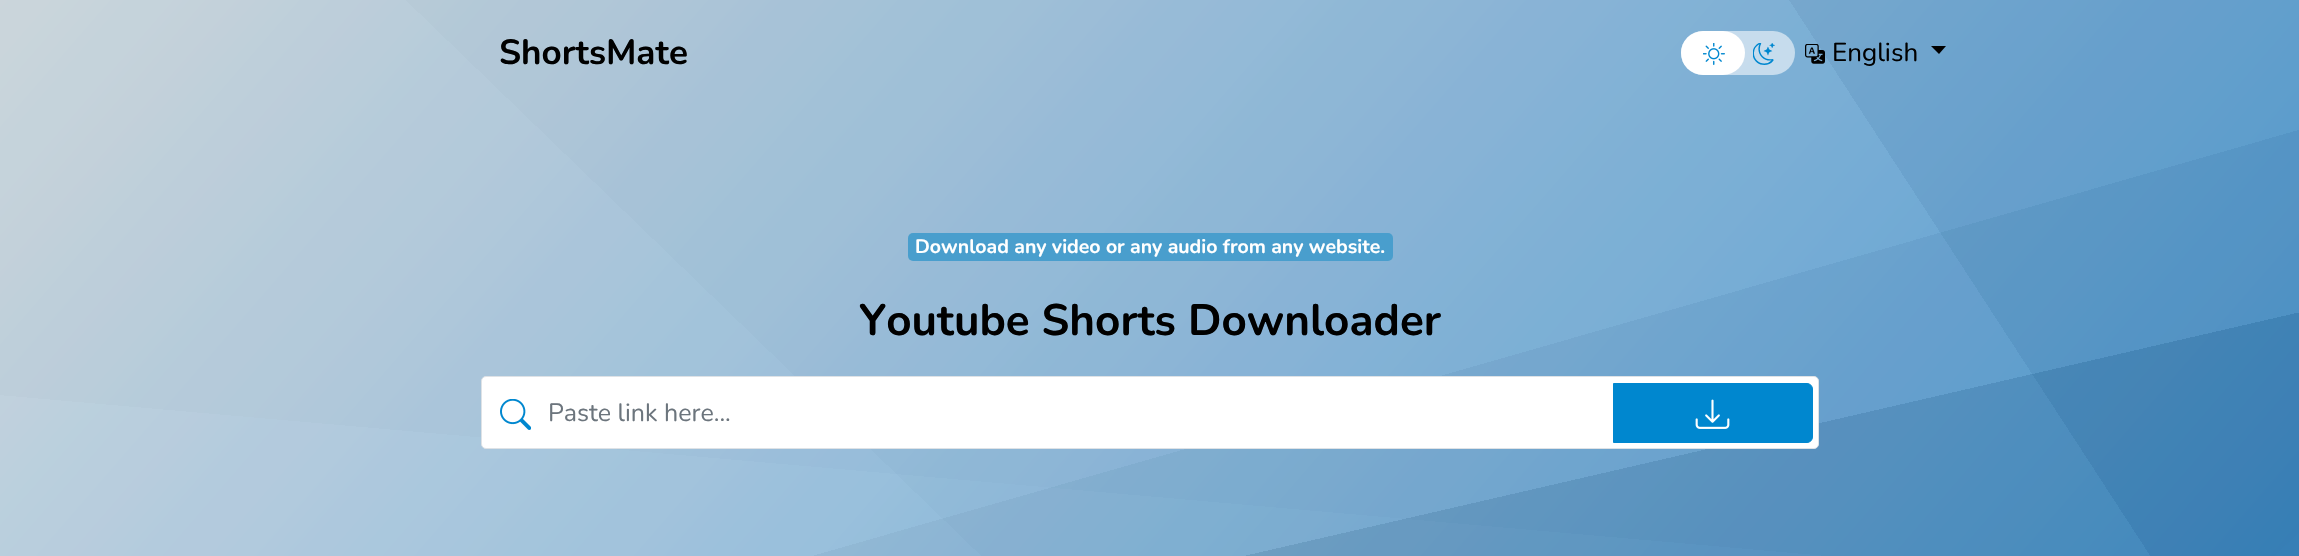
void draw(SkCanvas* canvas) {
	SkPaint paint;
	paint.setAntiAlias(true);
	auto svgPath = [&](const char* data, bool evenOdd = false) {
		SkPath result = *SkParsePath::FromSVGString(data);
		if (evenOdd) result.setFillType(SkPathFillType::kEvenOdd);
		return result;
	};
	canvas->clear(0xffffffff);
	{
		const SkColor colors[] = {0xff1695f7, 0xffe5f5ff};
		const float stops[] = {0, 1};
		const SkPoint ends[] = {{2010, 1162}, {290, -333}};
		paint.setShader(SkGradientShader::MakeLinear(ends, colors, stops, 2, SkTileMode::kClamp));
		paint.setAlpha(255);
	}
	canvas->drawRect(SkRect::MakeXYWH(0, 0, 2299, 556), paint);
	{
		const SkColor colors[] = {0x14929292, 0x14929292, 0x147b7b7b, 0x147b7b7b};
		const float stops[] = {0, 0.1, 0.1, 1};
		const SkPoint ends[] = {{1892, 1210}, {408, -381}};
		paint.setShader(SkGradientShader::MakeLinear(ends, colors, stops, 4, SkTileMode::kClamp));
		paint.setAlpha(255);
	}
	canvas->drawRect(SkRect::MakeXYWH(0, 0, 2299, 556), paint);
	{
		const SkColor colors[] = {0x1a131313, 0x1a131313, 0x1a7d7d7d, 0x1a7d7d7d};
		const float stops[] = {0, 0.18, 0.18, 1};
		const SkPoint ends[] = {{2148, -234}, {152, 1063}};
		paint.setShader(SkGradientShader::MakeLinear(ends, colors, stops, 4, SkTileMode::kClamp));
		paint.setAlpha(255);
	}
	canvas->drawRect(SkRect::MakeXYWH(0, 0, 2299, 556), paint);
	{
		const SkColor colors[] = {0x17f0f0f0, 0x17f0f0f0, 0x17929292, 0x17929292};
		const float stops[] = {0, 0.53, 0.53, 1};
		const SkPoint ends[] = {{953, -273}, {1347, 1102}};
		paint.setShader(SkGradientShader::MakeLinear(ends, colors, stops, 4, SkTileMode::kClamp));
		paint.setAlpha(255);
	}
	canvas->drawRect(SkRect::MakeXYWH(0, 0, 2299, 556), paint);
	{
		const SkColor colors[] = {0x0a888888, 0x0a888888, 0x0acdcdcd, 0x0acdcdcd};
		const float stops[] = {0, 0.58, 0.58, 1};
		const SkPoint ends[] = {{1195, -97}, {1105, 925}};
		paint.setShader(SkGradientShader::MakeLinear(ends, colors, stops, 4, SkTileMode::kClamp));
		paint.setAlpha(255);
	}
	canvas->drawRect(SkRect::MakeXYWH(0, 0, 2299, 556), paint);
	{
		const SkColor colors[] = {0x1ac8c8c8, 0x1ac8c8c8, 0x1a272727, 0x1a272727};
		const float stops[] = {0, 0.62, 0.62, 1};
		const SkPoint ends[] = {{1001, -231}, {1299, 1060}};
		paint.setShader(SkGradientShader::MakeLinear(ends, colors, stops, 4, SkTileMode::kClamp));
		paint.setAlpha(255);
	}
	canvas->drawRect(SkRect::MakeXYWH(0, 0, 2299, 556), paint);
	{
		const SkColor colors[] = {0x0d7a7a7a, 0x0d7a7a7a, 0x0d404040, 0x0d404040};
		const float stops[] = {0, 0.4, 0.4, 1};
		const SkPoint ends[] = {{388, 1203}, {1912, -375}};
		paint.setShader(SkGradientShader::MakeLinear(ends, colors, stops, 4, SkTileMode::kClamp));
		paint.setAlpha(255);
	}
	canvas->drawRect(SkRect::MakeXYWH(0, 0, 2299, 556), paint);
	SkFont f1(fontMgr->matchFamilyStyle("Nunito", SkFontStyle::Bold()), 35);
	f1.setSubpixel(true);
	paint.setShader(nullptr);
	paint.setColor(0xff000000);
	canvas->drawString("ShortsMate", 499, 64, f1, paint);
	paint.setColor(0x8fffffff);
	canvas->drawRoundRect(SkRect::MakeXYWH(1681, 31, 114, 44), 22, 22, paint);
	paint.setColor(0xffffffff);
	canvas->drawRoundRect(SkRect::MakeXYWH(1681, 31, 64, 44), 22, 22, paint);
	canvas->drawImageRect(SkImages::DeferredFromEncodedData(SkData::MakeFromFileName("img1.png")), SkRect::MakeXYWH(1703, 43, 22, 22), SkSamplingOptions());
	canvas->drawImageRect(SkImages::DeferredFromEncodedData(SkData::MakeFromFileName("img2.png")), SkRect::MakeXYWH(1753, 43, 22, 22), SkSamplingOptions());
	canvas->drawImageRect(SkImages::DeferredFromEncodedData(SkData::MakeFromFileName("img3.png")), SkRect::MakeXYWH(1805, 44, 20, 20), SkSamplingOptions());
	SkFont f2(fontMgr->matchFamilyStyle("Nunito", SkFontStyle::Normal()), 26);
	f2.setSubpixel(true);
	paint.setColor(0xff000000);
	canvas->drawString("English", 1832, 61, f2, paint);
	canvas->drawPath(svgPath("M1931 46H1946L1939 54Z"), paint);
	paint.setColor(0xff499ecd);
	canvas->drawRoundRect(SkRect::MakeXYWH(908, 233, 485, 28), 5, 5, paint);
	SkFont f3(fontMgr->matchFamilyStyle("Nunito", SkFontStyle::Bold()), 19.5);
	f3.setSubpixel(true);
	paint.setColor(0xffffffff);
	canvas->drawString("Download any video or any audio from any website.", 915, 253, f3, paint);
	SkFont f4(fontMgr->matchFamilyStyle("Nunito", SkFontStyle::Bold()), 44);
	f4.setSubpixel(true);
	paint.setColor(0xff000000);
	canvas->drawString("Youtube Shorts Downloader", 859, 335, f4, paint);
	paint.setColor(0xffffffff);
	canvas->drawRoundRect(SkRect::MakeXYWH(481.5, 376.5, 1337, 72), 4.5, 4.5, paint);
	paint.setStroke(true);
	paint.setStrokeWidth(1);
	paint.setColor(0xffdee2e6);
	canvas->drawRoundRect(SkRect::MakeXYWH(481.5, 376.5, 1337, 72), 4.5, 4.5, paint);
	canvas->drawImageRect(SkImages::DeferredFromEncodedData(SkData::MakeFromFileName("img4.png")), SkRect::MakeXYWH(500, 399, 31, 31), SkSamplingOptions());
	SkFont f5(fontMgr->matchFamilyStyle("Nunito", SkFontStyle::Normal()), 25);
	f5.setSubpixel(true);
	paint.setStroke(false);
	paint.setColor(0xff6c757d);
	canvas->drawString("Paste link here...", 548, 421, f5, paint);
	paint.setColor(0xff0087cf);
	canvas->drawPath(svgPath("M1613.5 383.5H1807C1810 383.5 1812.5 386 1812.5 389V437C1812.5 440 1810 442.5 1807 442.5H1613.5Z"), paint);
	paint.setStroke(true);
	canvas->drawPath(svgPath("M1613.5 383.5H1807C1810 383.5 1812.5 386 1812.5 389V437C1812.5 440 1810 442.5 1807 442.5H1613.5Z"), paint);
	canvas->drawImageRect(SkImages::DeferredFromEncodedData(SkData::MakeFromFileName("img5.png")), SkRect::MakeXYWH(1695, 399, 35, 30), SkSamplingOptions());
}
